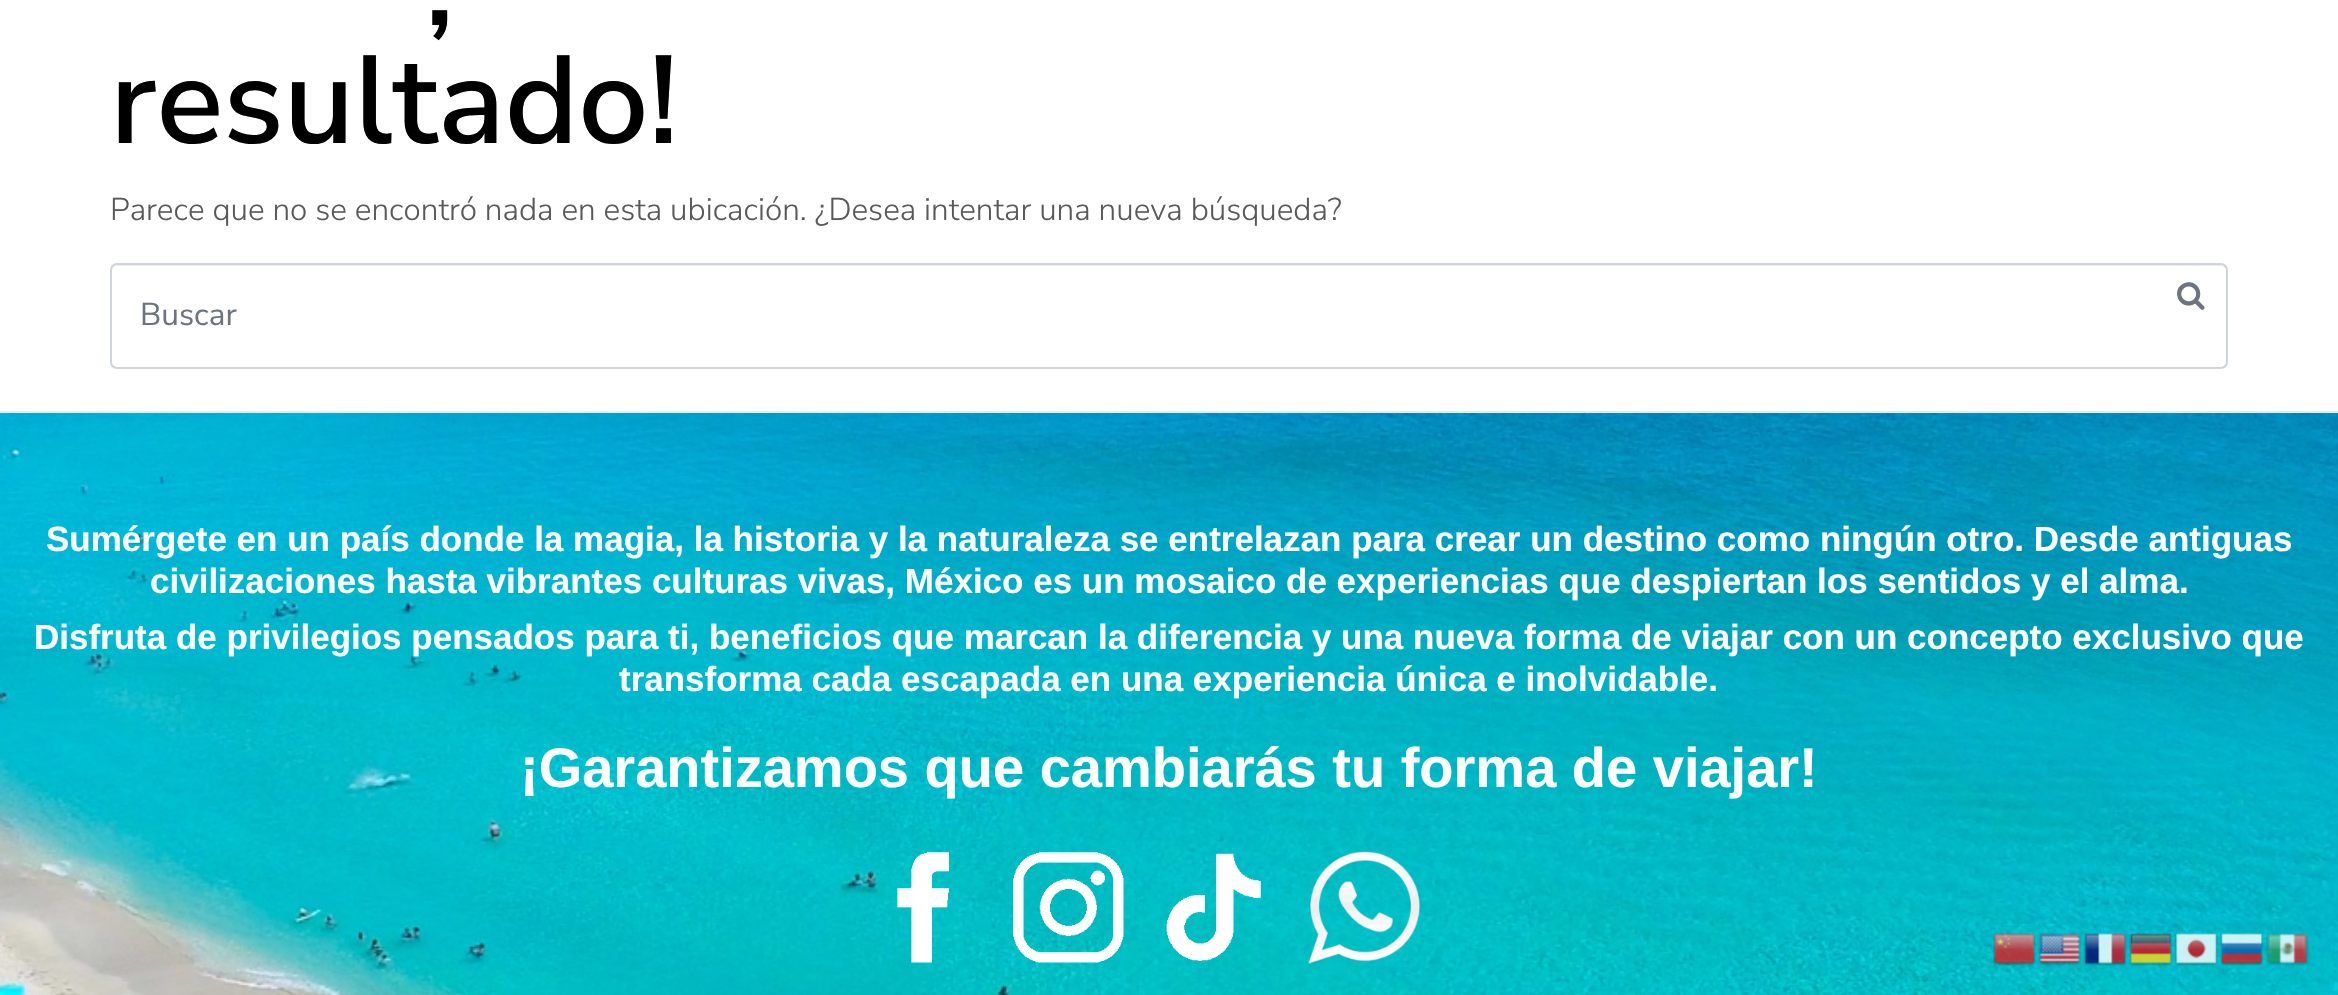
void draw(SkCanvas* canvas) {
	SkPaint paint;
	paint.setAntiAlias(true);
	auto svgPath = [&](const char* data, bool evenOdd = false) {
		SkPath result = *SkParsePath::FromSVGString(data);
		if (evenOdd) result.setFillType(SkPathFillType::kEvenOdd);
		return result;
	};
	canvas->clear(0xffffffff);
	SkFont f1(fontMgr->matchFamilyStyle("Nunito Sans", SkFontStyle(600, SkFontStyle::kNormal_Width, SkFontStyle::kUpright_Slant)), 124.5);
	f1.setSubpixel(true);
	paint.setColor(0xff000000);
	canvas->drawString(",", 425, 25, f1, paint);
	canvas->drawString("resultado!", 110, 143, f1, paint);
	SkFont f2(fontMgr->matchFamilyStyle("Nunito Sans", SkFontStyle(300, SkFontStyle::kNormal_Width, SkFontStyle::kUpright_Slant)), 31.5);
	f2.setSubpixel(true);
	paint.setColor(0xff58595a);
	canvas->drawString("Parece que no se encontró nada en esta ubicación. ¿Desea intentar una nueva búsqueda?", 110, 220, f2, paint);
	paint.setColor(0xffececec);
	canvas->drawPath(svgPath("M117 266H2221C2224 266 2226 268 2226 271V269C2226 266 2224 264 2221 264H117C114 264 112 266 112 269V271C112 268 114 266 117 266Z"), paint);
	paint.setStroke(true);
	paint.setStrokeWidth(2);
	paint.setColor(0xffced4da);
	canvas->drawRoundRect(SkRect::MakeXYWH(111, 264, 2116, 104), 6, 6, paint);
	canvas->drawImageRect(SkImages::DeferredFromEncodedData(SkData::MakeFromFileName("img1.png")), SkRect::MakeXYWH(2177, 282, 28, 28), SkSamplingOptions());
	SkFont f3(fontMgr->matchFamilyStyle("Nunito Sans", SkFontStyle::Normal()), 31.5);
	f3.setSubpixel(true);
	paint.setStroke(false);
	paint.setColor(0xff6c757d);
	canvas->drawString("Buscar", 140, 325, f3, paint);
	paint.setColor(0xffeaeaea);
	canvas->drawRect(SkRect::MakeXYWH(0, 411, 2338, 2), paint);
	canvas->drawImageRect(SkImages::DeferredFromEncodedData(SkData::MakeFromFileName("img2.png")), SkRect::MakeXYWH(0, 413, 2338, 582), SkSamplingOptions());
	SkFont f4(fontMgr->matchFamilyStyle("Liberation Sans", SkFontStyle::Bold()), 35);
	f4.setSubpixel(true);
	paint.setColor(0xffffffff);
	canvas->drawString("Sumérgete en un país donde la magia, la historia y la naturaleza se entrelazan para crear un destino como ningún otro. Desde antiguas", 46, 551, f4, paint);
	canvas->drawString("civilizaciones hasta vibrantes culturas vivas, México es un mosaico de experiencias que despiertan los sentidos y el alma.", 150, 593, f4, paint);
	canvas->drawString("Disfruta de privilegios pensados para ti, beneficios que marcan la diferencia y una nueva forma de viajar con un concepto exclusivo que", 34, 649, f4, paint);
	canvas->drawString("transforma cada escapada en una experiencia única e inolvidable.", 619, 691, f4, paint);
	SkFont f5(fontMgr->matchFamilyStyle("Liberation Sans", SkFontStyle::Bold()), 56);
	f5.setSubpixel(true);
	canvas->drawString("¡Garantizamos que cambiarás tu forma de viajar!", 520, 787, f5, paint);
	canvas->drawImageRect(SkImages::DeferredFromEncodedData(SkData::MakeFromFileName("img3.png")), SkRect::MakeXYWH(897, 852, 52, 111), SkSamplingOptions());
	canvas->drawImageRect(SkImages::DeferredFromEncodedData(SkData::MakeFromFileName("img4.png")), SkRect::MakeXYWH(1013, 852, 111, 111), SkSamplingOptions());
	canvas->drawImageRect(SkImages::DeferredFromEncodedData(SkData::MakeFromFileName("img5.png")), SkRect::MakeXYWH(1166, 853, 95, 108), SkSamplingOptions());
	canvas->drawImageRect(SkImages::DeferredFromEncodedData(SkData::MakeFromFileName("img6.png")), SkRect::MakeXYWH(1308, 851, 112, 113), SkSamplingOptions());
	canvas->drawImageRect(SkImages::DeferredFromEncodedData(SkData::MakeFromFileName("img7.png")), SkRect::MakeXYWH(1993, 933, 43, 33), SkSamplingOptions());
	canvas->drawImageRect(SkImages::DeferredFromEncodedData(SkData::MakeFromFileName("img8.png")), SkRect::MakeXYWH(2038, 933, 43, 33), SkSamplingOptions());
	canvas->drawImageRect(SkImages::DeferredFromEncodedData(SkData::MakeFromFileName("img9.png")), SkRect::MakeXYWH(2084, 933, 43, 33), SkSamplingOptions());
	canvas->drawImageRect(SkImages::DeferredFromEncodedData(SkData::MakeFromFileName("img10.png")), SkRect::MakeXYWH(2129, 933, 43, 33), SkSamplingOptions());
	canvas->drawImageRect(SkImages::DeferredFromEncodedData(SkData::MakeFromFileName("img11.png")), SkRect::MakeXYWH(2175, 933, 43, 33), SkSamplingOptions());
	canvas->drawImageRect(SkImages::DeferredFromEncodedData(SkData::MakeFromFileName("img12.png")), SkRect::MakeXYWH(2220, 933, 43, 33), SkSamplingOptions());
	canvas->drawImageRect(SkImages::DeferredFromEncodedData(SkData::MakeFromFileName("img13.png")), SkRect::MakeXYWH(2266, 933, 43, 33), SkSamplingOptions());
}
